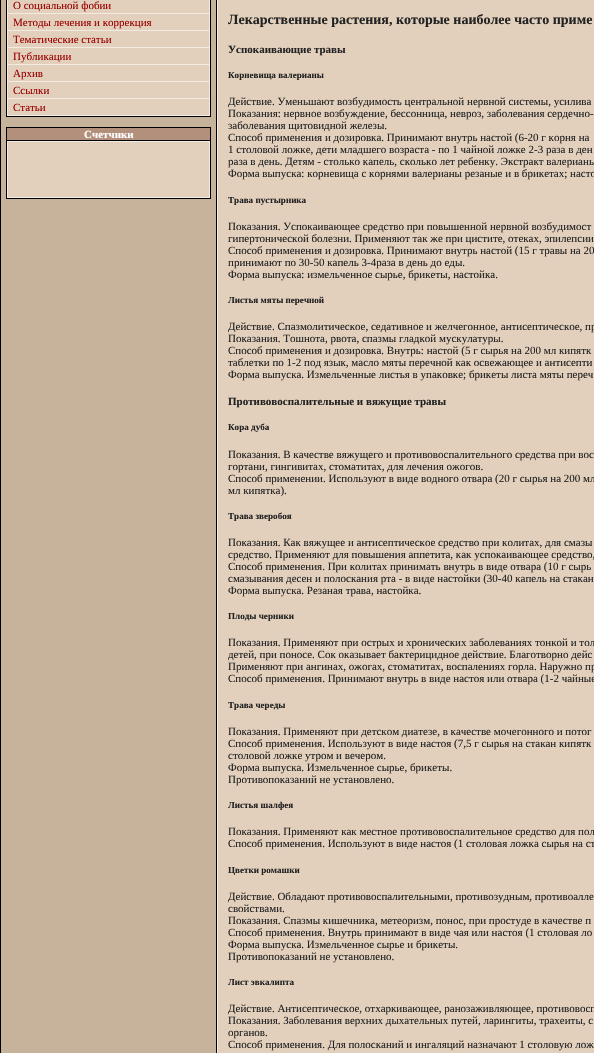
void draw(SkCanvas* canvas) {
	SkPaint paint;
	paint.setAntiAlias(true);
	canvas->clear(0xffffffff);
	paint.setStroke(true);
	paint.setStrokeWidth(1);
	paint.setColor(0xff000000);
	canvas->drawRect(SkRect::MakeXYWH(0.5, -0.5, 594, 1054), paint);
	paint.setStroke(false);
	paint.setColor(0xffc7b39b);
	canvas->drawRect(SkRect::MakeXYWH(1, 0, 215, 1053), paint);
	paint.setColor(0xffe2d0bc);
	canvas->drawRect(SkRect::MakeXYWH(8, 0, 201, 115), paint);
	paint.setStroke(true);
	paint.setColor(0xff000000);
	canvas->drawRect(SkRect::MakeXYWH(6.5, -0.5, 204, 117), paint);
	paint.setColor(0xfff3eae2);
	canvas->drawRect(SkRect::MakeXYWH(7.5, -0.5, 202, 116), paint);
	SkFont f1(fontMgr->matchFamilyStyle("Liberation Serif", SkFontStyle::Normal()), 11);
	f1.setSubpixel(true);
	paint.setStroke(false);
	paint.setColor(0xff990000);
	canvas->drawString("О социальной фобии", 13, 9, f1, paint);
	paint.setColor(0xfff3eae2);
	canvas->drawRect(SkRect::MakeXYWH(8, 13, 201, 1), paint);
	paint.setColor(0xff990000);
	canvas->drawString("Методы лечения и коррекция", 13, 26, f1, paint);
	paint.setColor(0xfff3eae2);
	canvas->drawRect(SkRect::MakeXYWH(8, 30, 201, 1), paint);
	paint.setColor(0xff990000);
	canvas->drawString("Тематические статьи", 13, 43, f1, paint);
	paint.setColor(0xfff3eae2);
	canvas->drawRect(SkRect::MakeXYWH(8, 47, 201, 1), paint);
	paint.setColor(0xff990000);
	canvas->drawString("Публикации", 13, 60, f1, paint);
	paint.setColor(0xfff3eae2);
	canvas->drawRect(SkRect::MakeXYWH(8, 64, 201, 1), paint);
	paint.setColor(0xff990000);
	canvas->drawString("Архив", 13, 77, f1, paint);
	paint.setColor(0xfff3eae2);
	canvas->drawRect(SkRect::MakeXYWH(8, 81, 201, 1), paint);
	paint.setColor(0xff990000);
	canvas->drawString("Ссылки", 13, 94, f1, paint);
	paint.setColor(0xfff3eae2);
	canvas->drawRect(SkRect::MakeXYWH(8, 98, 201, 1), paint);
	paint.setColor(0xff990000);
	canvas->drawString("Статьи", 13, 111, f1, paint);
	paint.setColor(0xffe2d0bc);
	canvas->drawRect(SkRect::MakeXYWH(8, 142, 201, 55), paint);
	paint.setStroke(true);
	paint.setColor(0xff000000);
	canvas->drawRect(SkRect::MakeXYWH(6.5, 127.5, 204, 71), paint);
	paint.setStroke(false);
	paint.setColor(0xffb3907c);
	canvas->drawRect(SkRect::MakeXYWH(7, 128, 203, 12), paint);
	paint.setColor(0xff000000);
	canvas->drawRect(SkRect::MakeXYWH(7, 140, 203, 1), paint);
	SkFont f2(fontMgr->matchFamilyStyle("Liberation Serif", SkFontStyle::Bold()), 11);
	f2.setSubpixel(true);
	paint.setColor(0xffffffff);
	canvas->drawString("Счетчики", 84, 138, f2, paint);
	paint.setStroke(true);
	paint.setColor(0xfff3eae2);
	canvas->drawRect(SkRect::MakeXYWH(7.5, 141.5, 202, 56), paint);
	paint.setStroke(false);
	paint.setColor(0xffe2d0bc);
	canvas->drawRect(SkRect::MakeXYWH(218, 0, 376, 1053), paint);
	paint.setStroke(true);
	paint.setColor(0xff000000);
	canvas->drawRect(SkRect::MakeXYWH(216.5, -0.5, 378, 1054), paint);
	paint.setColor(0xfff3eae2);
	canvas->drawRect(SkRect::MakeXYWH(217.5, -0.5, 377, 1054), paint);
	SkFont f3(fontMgr->matchFamilyStyle("Liberation Serif", SkFontStyle::Bold()), 14);
	f3.setSubpixel(true);
	paint.setStroke(false);
	paint.setColor(0xff222222);
	canvas->drawString("Лекарственные растения, которые наиболее часто приме", 228, 24, f3, paint);
	canvas->drawString("Успокаивающие травы", 228, 53, f2, paint);
	SkFont f4(fontMgr->matchFamilyStyle("Liberation Serif", SkFontStyle::Bold()), 9.1);
	f4.setSubpixel(true);
	canvas->drawString("Корневища валерианы", 228, 78, f4, paint);
	canvas->drawString("Действие. Уменьшают возбудимость центральной нервной системы, усилива", 228, 105, f1, paint);
	canvas->drawString("Показания: нервное возбуждение, бессонница, невроз, заболевания сердечно-", 228, 117, f1, paint);
	canvas->drawString("заболевания щитовидной железы.", 228, 129, f1, paint);
	canvas->drawString("Способ применения и дозировка. Принимают внутрь настой (6-20 г корня на", 228, 141, f1, paint);
	canvas->drawString("1 столовой ложке, дети младшего возраста - по 1 чайной ложке 2-3 раза в ден", 228, 153, f1, paint);
	canvas->drawString("раза в день. Детям - столько капель, сколько лет ребенку. Экстракт валерианы", 228, 165, f1, paint);
	canvas->drawString("Форма выпуска: корневища с корнями валерианы резаные и в брикетах; насто", 228, 177, f1, paint);
	canvas->drawString("Трава пустырника", 228, 203, f4, paint);
	canvas->drawString("Показания. Успокаивающее средство при повышенной нервной возбудимост", 228, 230, f1, paint);
	canvas->drawString("гипертонической болезни. Применяют так же при цистите, отеках, эпилепсии", 228, 242, f1, paint);
	canvas->drawString("Способ применения и дозировка. Принимают внутрь настой (15 г травы на 20", 228, 254, f1, paint);
	canvas->drawString("принимают по 30-50 капель 3-4раза в день до еды.", 228, 266, f1, paint);
	canvas->drawString("Форма выпуска: измельченное сырье, брикеты, настойка.", 228, 278, f1, paint);
	canvas->drawString("Листья мяты перечной", 228, 303, f4, paint);
	canvas->drawString("Действие. Спазмолитическое, седативное и желчегонное, антисептическое, пр", 228, 330, f1, paint);
	canvas->drawString("Показания. Тошнота, рвота, спазмы гладкой мускулатуры.", 228, 342, f1, paint);
	canvas->drawString("Способ применения и дозировка. Внутрь: настой (5 г сырья на 200 мл кипятк", 228, 354, f1, paint);
	canvas->drawString("таблетки по 1-2 под язык, масло мяты перечной как освежающее и антисепти", 228, 366, f1, paint);
	canvas->drawString("Форма выпуска. Измельченные листья в упаковке; брикеты листа мяты переч", 228, 378, f1, paint);
	canvas->drawString("Противовоспалительные и вяжущие травы", 228, 405, f2, paint);
	canvas->drawString("Кора дуба", 228, 430, f4, paint);
	canvas->drawString("Показания. В качестве вяжущего и противовоспалительного средства при вос", 228, 458, f1, paint);
	canvas->drawString("гортани, гингивитах, стоматитах, для лечения ожогов.", 228, 470, f1, paint);
	canvas->drawString("Способ применении. Используют в виде водного отвара (20 г сырья на 200 мл", 228, 482, f1, paint);
	canvas->drawString("мл кипятка).", 228, 494, f1, paint);
	canvas->drawString("Трава зверобоя", 228, 519, f4, paint);
	canvas->drawString("Показания. Как вяжущее и антисептическое средство при колитах, для смазы", 228, 546, f1, paint);
	canvas->drawString("средство. Применяют для повышения аппетита, как успокаивающее средство,", 228, 558, f1, paint);
	canvas->drawString("Способ применения. При колитах принимать внутрь в виде отвара (10 г сырь", 228, 570, f1, paint);
	canvas->drawString("смазывания десен и полоскания рта - в виде настойки (30-40 капель на стакан", 228, 582, f1, paint);
	canvas->drawString("Форма выпуска. Резаная трава, настойка.", 228, 594, f1, paint);
	canvas->drawString("Плоды черники", 228, 619, f4, paint);
	canvas->drawString("Показания. Применяют при острых и хронических заболеваниях тонкой и тол", 228, 646, f1, paint);
	canvas->drawString("детей, при поносе. Сок оказывает бактерицидное действие. Благотворно дейс", 228, 658, f1, paint);
	canvas->drawString("Применяют при ангинах, ожогах, стоматитах, воспалениях горла. Наружно пр", 228, 670, f1, paint);
	canvas->drawString("Способ применения. Принимают внутрь в виде настоя или отвара (1-2 чайные", 228, 682, f1, paint);
	canvas->drawString("Трава череды", 228, 708, f4, paint);
	canvas->drawString("Показания. Применяют при детском диатезе, в качестве мочегонного и потог", 228, 735, f1, paint);
	canvas->drawString("Способ применения. Используют в виде настоя (7,5 г сырья на стакан кипятк", 228, 747, f1, paint);
	canvas->drawString("столовой ложке утром и вечером.", 228, 759, f1, paint);
	canvas->drawString("Форма выпуска. Измельченное сырье, брикеты.", 228, 771, f1, paint);
	canvas->drawString("Противопоказаний не установлено.", 228, 783, f1, paint);
	canvas->drawString("Листья шалфея", 228, 808, f4, paint);
	canvas->drawString("Показания. Применяют как местное противовоспалительное средство для пол", 228, 835, f1, paint);
	canvas->drawString("Способ применения. Используют в виде настоя (1 столовая ложка сырья на ст", 228, 847, f1, paint);
	canvas->drawString("Цветки ромашки", 228, 873, f4, paint);
	canvas->drawString("Действие. Обладают противовоспалительными, противозудным, противоалле", 228, 900, f1, paint);
	canvas->drawString("свойствами.", 228, 912, f1, paint);
	canvas->drawString("Показания. Спазмы кишечника, метеоризм, понос, при простуде в качестве п", 228, 924, f1, paint);
	canvas->drawString("Способ применения. Внутрь принимают в виде чая или настоя (1 столовая ло", 228, 936, f1, paint);
	canvas->drawString("Форма выпуска. Измельченное сырье и брикеты.", 228, 948, f1, paint);
	canvas->drawString("Противопоказаний не установлено.", 228, 960, f1, paint);
	canvas->drawString("Лист эвкалипта", 228, 985, f4, paint);
	canvas->drawString("Действие. Антисептическое, отхаркивающее, ранозаживляющее, противовосп", 228, 1012, f1, paint);
	canvas->drawString("Показания. Заболевания верхних дыхательных путей, ларингиты, трахеиты, с", 228, 1024, f1, paint);
	canvas->drawString("органов.", 228, 1036, f1, paint);
	canvas->drawString("Способ применения. Для полосканий и ингаляций назначают 1 столовую лож", 228, 1048, f1, paint);
}
